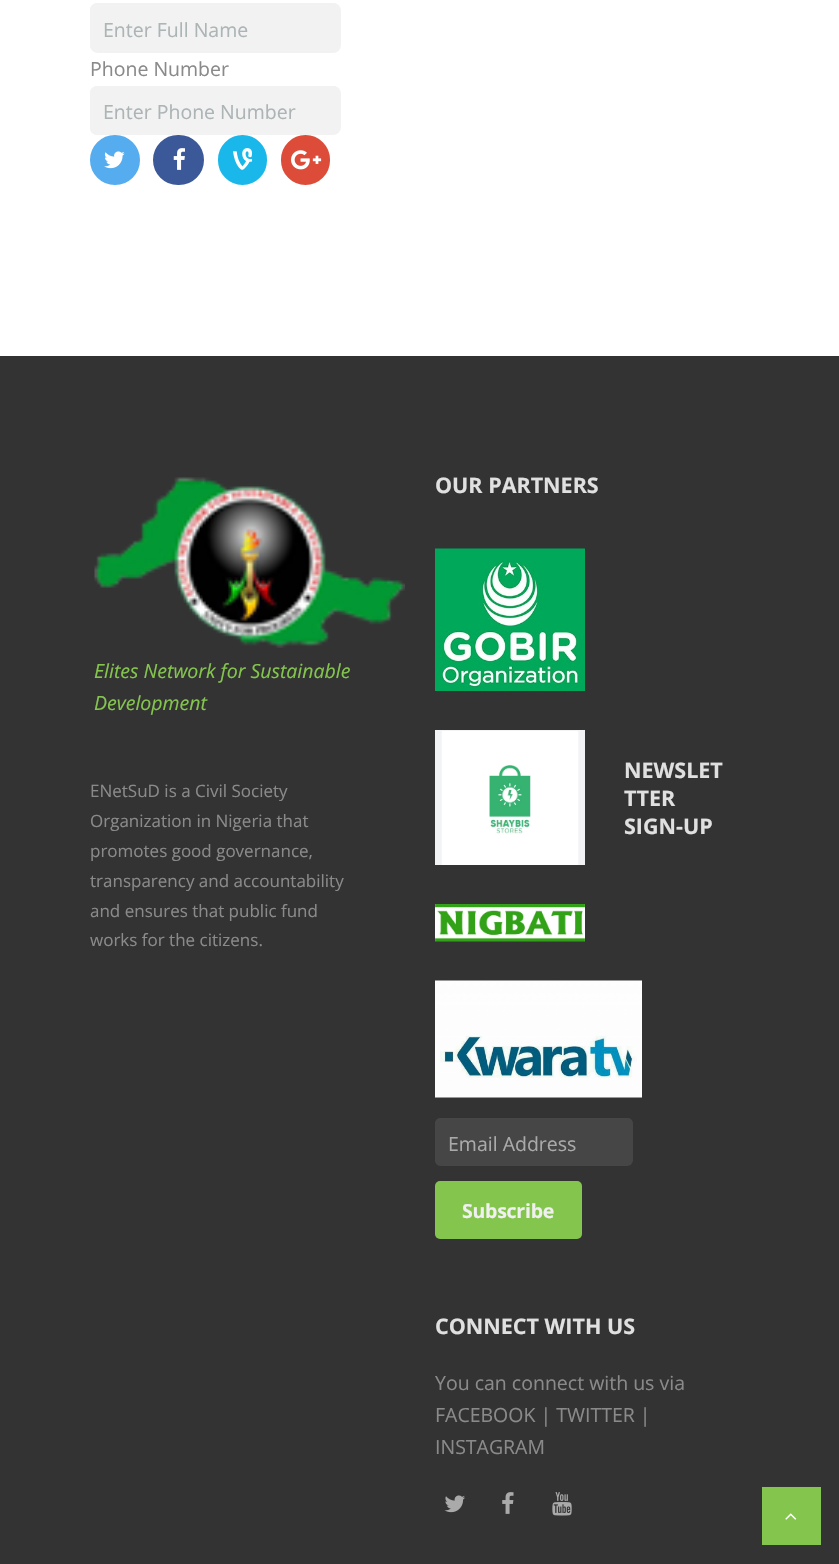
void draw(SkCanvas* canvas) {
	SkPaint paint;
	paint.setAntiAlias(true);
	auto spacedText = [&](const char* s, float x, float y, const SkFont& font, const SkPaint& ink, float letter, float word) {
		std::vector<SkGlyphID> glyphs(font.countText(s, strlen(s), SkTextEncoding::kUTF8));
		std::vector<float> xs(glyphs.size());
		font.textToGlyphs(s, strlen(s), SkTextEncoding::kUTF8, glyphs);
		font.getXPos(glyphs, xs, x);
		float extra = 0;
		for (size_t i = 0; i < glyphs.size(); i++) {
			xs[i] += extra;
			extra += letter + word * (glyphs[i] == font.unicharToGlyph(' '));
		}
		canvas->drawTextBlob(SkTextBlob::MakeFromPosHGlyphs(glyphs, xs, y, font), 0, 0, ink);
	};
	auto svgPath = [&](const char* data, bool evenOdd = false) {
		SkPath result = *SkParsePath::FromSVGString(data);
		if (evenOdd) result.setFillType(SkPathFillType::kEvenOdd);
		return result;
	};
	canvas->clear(0xffffffff);
	paint.setColor(0xfff2f2f2);
	canvas->drawRoundRect(SkRect::MakeXYWH(90, 3, 251, 50), 8, 8, paint);
	canvas->drawPath(svgPath("M98 3H333C337 3 340 6 340 10V45C340 49 337 52 333 52H98C93 52 90 49 90 45V10C90 6 93 3 98 3ZM98 6H333C337 6 340 8 340 10V45C340 49 337 52 333 52H98C95 52 93 49 93 45V10C93 8 95 6 98 6Z", true), paint);
	SkFont f1(fontMgr->matchFamilyStyle("Open Sans", SkFontStyle::Normal()), 19.5);
	f1.setSubpixel(true);
	paint.setColor(0xffacb4b6);
	canvas->drawString("Enter Full Name", 103, 37, f1, paint);
	paint.setColor(0xff8a8a8a);
	canvas->drawString("Phone Number", 90, 76, f1, paint);
	paint.setColor(0xfff2f2f2);
	canvas->drawRoundRect(SkRect::MakeXYWH(90, 86, 251, 49), 8, 8, paint);
	canvas->drawPath(svgPath("M98 86H333C337 86 340 89 340 93V128C340 132 337 135 333 135H98C93 135 90 132 90 128V93C90 89 93 86 98 86ZM98 88H333C337 88 340 91 340 93V128C340 132 337 135 333 135H98C95 135 93 132 93 128V93C93 91 95 88 98 88Z", true), paint);
	paint.setColor(0xffacb4b6);
	canvas->drawString("Enter Phone Number", 103, 119, f1, paint);
	paint.setColor(0xff55acee);
	canvas->drawCircle(115, 160, 23.5, paint);
	paint.setStroke(true);
	paint.setStrokeWidth(3);
	canvas->drawCircle(115, 160, 23.5, paint);
	canvas->drawImageRect(SkImages::DeferredFromEncodedData(SkData::MakeFromFileName("img1.png")), SkRect::MakeXYWH(104, 151, 21, 18), SkSamplingOptions());
	paint.setStroke(false);
	paint.setColor(0xff3b5998);
	canvas->drawRoundRect(SkRect::MakeXYWH(154.5, 136.5, 48, 47), 23.5, 23.5, paint);
	paint.setStroke(true);
	canvas->drawRoundRect(SkRect::MakeXYWH(154.5, 136.5, 48, 47), 23.5, 23.5, paint);
	canvas->drawImageRect(SkImages::DeferredFromEncodedData(SkData::MakeFromFileName("img2.png")), SkRect::MakeXYWH(173, 148, 12, 22), SkSamplingOptions());
	paint.setStroke(false);
	paint.setColor(0xff1ab7ea);
	canvas->drawRoundRect(SkRect::MakeXYWH(219.5, 136.5, 46, 47), 23, 23, paint);
	paint.setStroke(true);
	canvas->drawRoundRect(SkRect::MakeXYWH(219.5, 136.5, 46, 47), 23, 23, paint);
	canvas->drawImageRect(SkImages::DeferredFromEncodedData(SkData::MakeFromFileName("img3.png")), SkRect::MakeXYWH(233, 148, 20, 22), SkSamplingOptions());
	paint.setStroke(false);
	paint.setColor(0xffdd4b39);
	canvas->drawRoundRect(SkRect::MakeXYWH(282.5, 136.5, 46, 47), 23, 23, paint);
	paint.setStroke(true);
	canvas->drawRoundRect(SkRect::MakeXYWH(282.5, 136.5, 46, 47), 23, 23, paint);
	canvas->drawImageRect(SkImages::DeferredFromEncodedData(SkData::MakeFromFileName("img4.png")), SkRect::MakeXYWH(291, 150, 31, 20), SkSamplingOptions());
	paint.setStroke(false);
	paint.setColor(0xff333333);
	canvas->drawRect(SkRect::MakeXYWH(0, 356, 839, 1208), paint);
	canvas->drawImageRect(SkImages::DeferredFromEncodedData(SkData::MakeFromFileName("img5.png")), SkRect::MakeXYWH(94, 477, 311, 171), SkSamplingOptions());
	SkFont f2(fontMgr->matchFamilyStyle("Open Sans", SkFontStyle::Italic()), 19.5);
	f2.setSubpixel(true);
	paint.setColor(0xff84c54e);
	canvas->drawString("Elites Network for Sustainable", 94, 678, f2, paint);
	canvas->drawString("Development", 94, 710, f2, paint);
	SkFont f3(fontMgr->matchFamilyStyle("Open Sans", SkFontStyle::Normal()), 17);
	f3.setSubpixel(true);
	paint.setColor(0xff8a8a8a);
	canvas->drawString("ENetSuD is a Civil Society", 90, 797, f3, paint);
	canvas->drawString("Organization in Nigeria that", 90, 827, f3, paint);
	canvas->drawString("promotes good governance,", 90, 857, f3, paint);
	canvas->drawString("transparency and accountability", 90, 887, f3, paint);
	canvas->drawString("and ensures that public fund", 90, 917, f3, paint);
	canvas->drawString("works for the citizens.", 90, 946, f3, paint);
	SkFont f4(fontMgr->matchFamilyStyle("Open Sans", SkFontStyle::Bold()), 21.5);
	f4.setSubpixel(true);
	paint.setColor(0xffe0e0e0);
	canvas->drawString("OUR PARTNERS", 435, 493, f4, paint);
	canvas->drawImageRect(SkImages::DeferredFromEncodedData(SkData::MakeFromFileName("img6.png")), SkRect::MakeXYWH(435, 548, 150, 143), SkSamplingOptions());
	canvas->drawImageRect(SkImages::DeferredFromEncodedData(SkData::MakeFromFileName("img7.png")), SkRect::MakeXYWH(435, 730, 150, 135), SkSamplingOptions());
	canvas->drawImageRect(SkImages::DeferredFromEncodedData(SkData::MakeFromFileName("img8.png")), SkRect::MakeXYWH(435, 904, 150, 38), SkSamplingOptions());
	canvas->drawImageRect(SkImages::DeferredFromEncodedData(SkData::MakeFromFileName("img9.png")), SkRect::MakeXYWH(435, 980, 207, 118), SkSamplingOptions());
	canvas->drawString("NEWSLET", 624, 778, f4, paint);
	canvas->drawString("TTER", 624, 806, f4, paint);
	canvas->drawString("SIGN-UP", 624, 834, f4, paint);
	paint.setColor(0xff464646);
	canvas->drawRoundRect(SkRect::MakeXYWH(435, 1118, 198, 48), 6, 6, paint);
	canvas->drawPath(svgPath("M441 1118H627C630 1118 633 1120 633 1124V1160C633 1163 630 1166 627 1166H441C438 1166 435 1163 435 1160V1124C435 1120 438 1118 441 1118ZM441 1120H627C630 1120 633 1122 633 1124V1160C633 1163 630 1166 627 1166H441C439 1166 438 1163 438 1160V1124C438 1122 439 1120 441 1120Z", true), paint);
	paint.setColor(0xffaaaaaa);
	canvas->drawString("Email Address", 448, 1151, f1, paint);
	paint.setColor(0xff84c54e);
	canvas->drawRoundRect(SkRect::MakeXYWH(435, 1181, 147, 58), 5, 5, paint);
	SkFont f5(fontMgr->matchFamilyStyle("Open Sans", SkFontStyle::Bold()), 19.5);
	f5.setSubpixel(true);
	paint.setColor(0xfff0f0f0);
	spacedText("Subscribe", 462, 1218, f5, paint, -0.25, 0);
	paint.setColor(0xffe0e0e0);
	canvas->drawString("CONNECT WITH US", 435, 1334, f4, paint);
	paint.setColor(0xff8a8a8a);
	canvas->drawString("You can connect with us via", 435, 1390, f1, paint);
	canvas->drawString("FACEBOOK | TWITTER |", 435, 1422, f1, paint);
	canvas->drawString("INSTAGRAM", 435, 1454, f1, paint);
	canvas->drawImageRect(SkImages::DeferredFromEncodedData(SkData::MakeFromFileName("img10.png")), SkRect::MakeXYWH(444, 1495, 21, 18), SkSamplingOptions());
	canvas->drawImageRect(SkImages::DeferredFromEncodedData(SkData::MakeFromFileName("img11.png")), SkRect::MakeXYWH(502, 1492, 12, 22), SkSamplingOptions());
	canvas->drawImageRect(SkImages::DeferredFromEncodedData(SkData::MakeFromFileName("img12.png")), SkRect::MakeXYWH(552, 1492, 20, 24), SkSamplingOptions());
	paint.setColor(0xff84c54e);
	canvas->drawRect(SkRect::MakeXYWH(762, 1487, 59, 58), paint);
	canvas->drawImageRect(SkImages::DeferredFromEncodedData(SkData::MakeFromFileName("img13.png")), SkRect::MakeXYWH(785, 1513, 12, 7), SkSamplingOptions());
}
